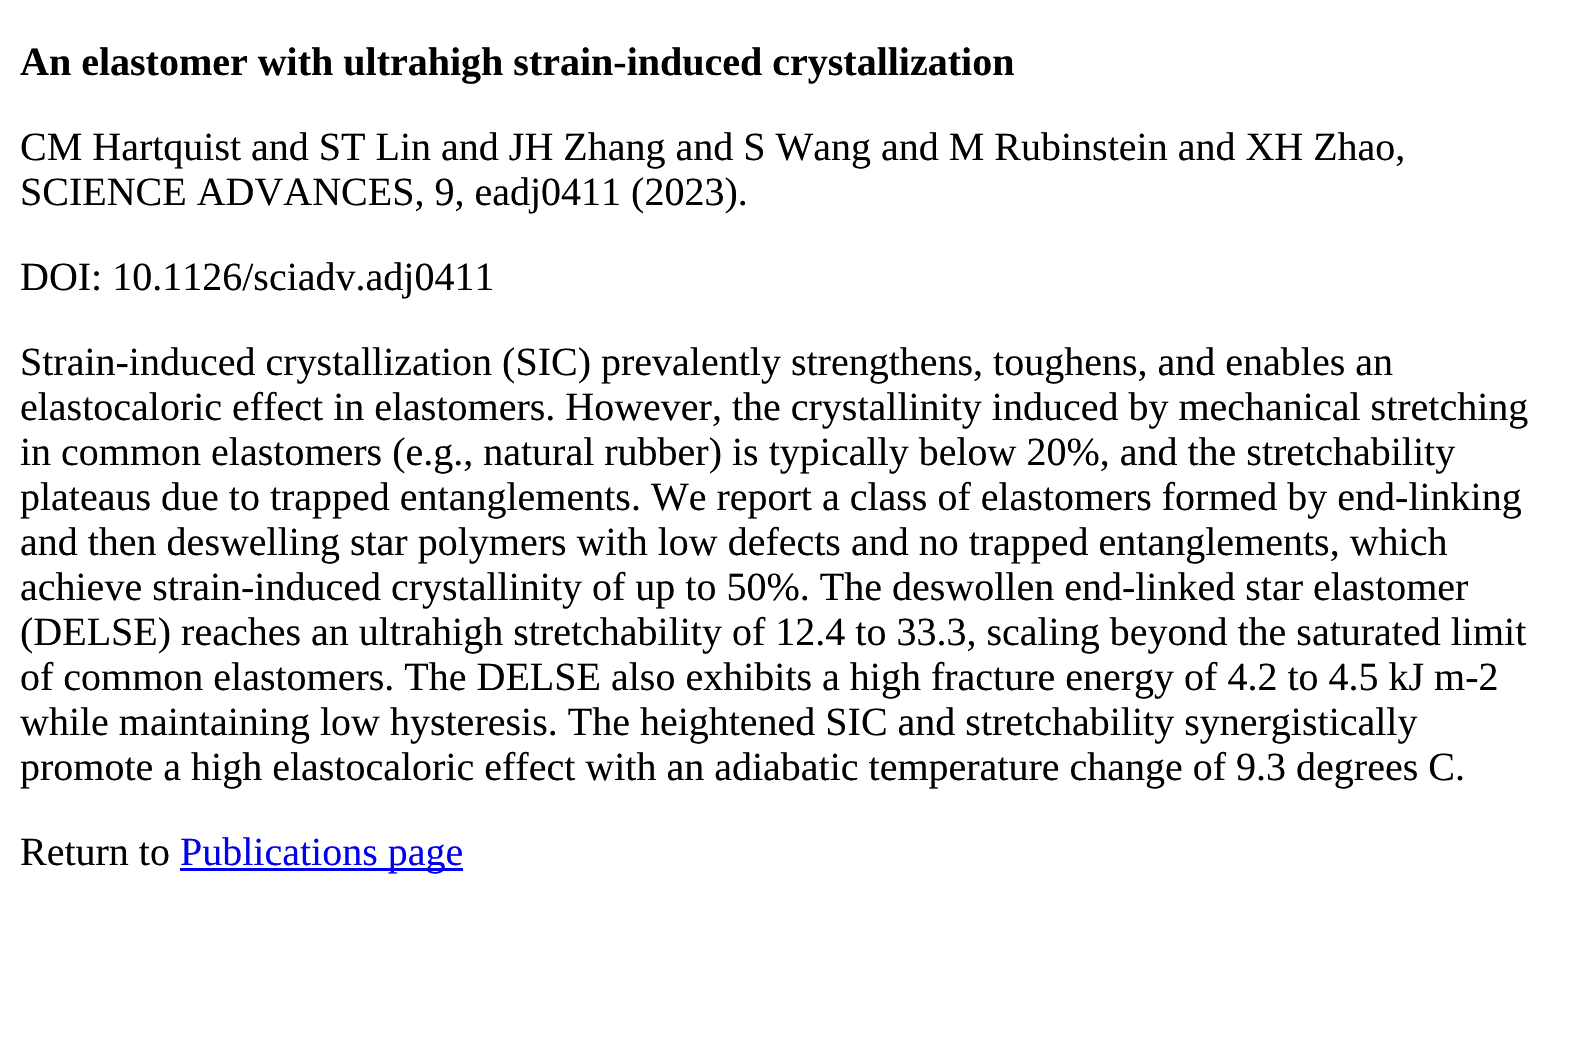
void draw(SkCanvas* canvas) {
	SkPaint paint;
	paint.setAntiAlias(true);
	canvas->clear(0xffffffff);
	SkFont f1(fontMgr->matchFamilyStyle("Liberation Serif", SkFontStyle::Bold()), 40);
	f1.setSubpixel(true);
	paint.setColor(0xff000000);
	canvas->drawString("An elastomer with ultrahigh strain-induced crystallization", 20, 75, f1, paint);
	SkFont f2(fontMgr->matchFamilyStyle("Liberation Serif", SkFontStyle::Normal()), 40);
	f2.setSubpixel(true);
	canvas->drawString("CM Hartquist and ST Lin and JH Zhang and S Wang and M Rubinstein and XH Zhao,", 20, 160, f2, paint);
	canvas->drawString("SCIENCE ADVANCES, 9, eadj0411 (2023).", 20, 205, f2, paint);
	canvas->drawString("DOI: 10.1126/sciadv.adj0411", 20, 290, f2, paint);
	canvas->drawString("Strain-induced crystallization (SIC) prevalently strengthens, toughens, and enables an", 20, 375, f2, paint);
	canvas->drawString("elastocaloric effect in elastomers. However, the crystallinity induced by mechanical stretching", 20, 420, f2, paint);
	canvas->drawString("in common elastomers (e.g., natural rubber) is typically below 20%, and the stretchability", 20, 465, f2, paint);
	canvas->drawString("plateaus due to trapped entanglements. We report a class of elastomers formed by end-linking", 20, 510, f2, paint);
	canvas->drawString("and then deswelling star polymers with low defects and no trapped entanglements, which", 20, 555, f2, paint);
	canvas->drawString("achieve strain-induced crystallinity of up to 50%. The deswollen end-linked star elastomer", 20, 600, f2, paint);
	canvas->drawString("(DELSE) reaches an ultrahigh stretchability of 12.4 to 33.3, scaling beyond the saturated limit", 20, 645, f2, paint);
	canvas->drawString("of common elastomers. The DELSE also exhibits a high fracture energy of 4.2 to 4.5 kJ m-2", 20, 690, f2, paint);
	canvas->drawString("while maintaining low hysteresis. The heightened SIC and stretchability synergistically", 20, 735, f2, paint);
	canvas->drawString("promote a high elastocaloric effect with an adiabatic temperature change of 9.3 degrees C.", 20, 780, f2, paint);
	canvas->drawString("Return to", 20, 865, f2, paint);
	paint.setColor(0xff0000ee);
	canvas->drawRect(SkRect::MakeXYWH(180, 868, 283, 3), paint);
	canvas->drawString("Publications page", 180, 865, f2, paint);
}
